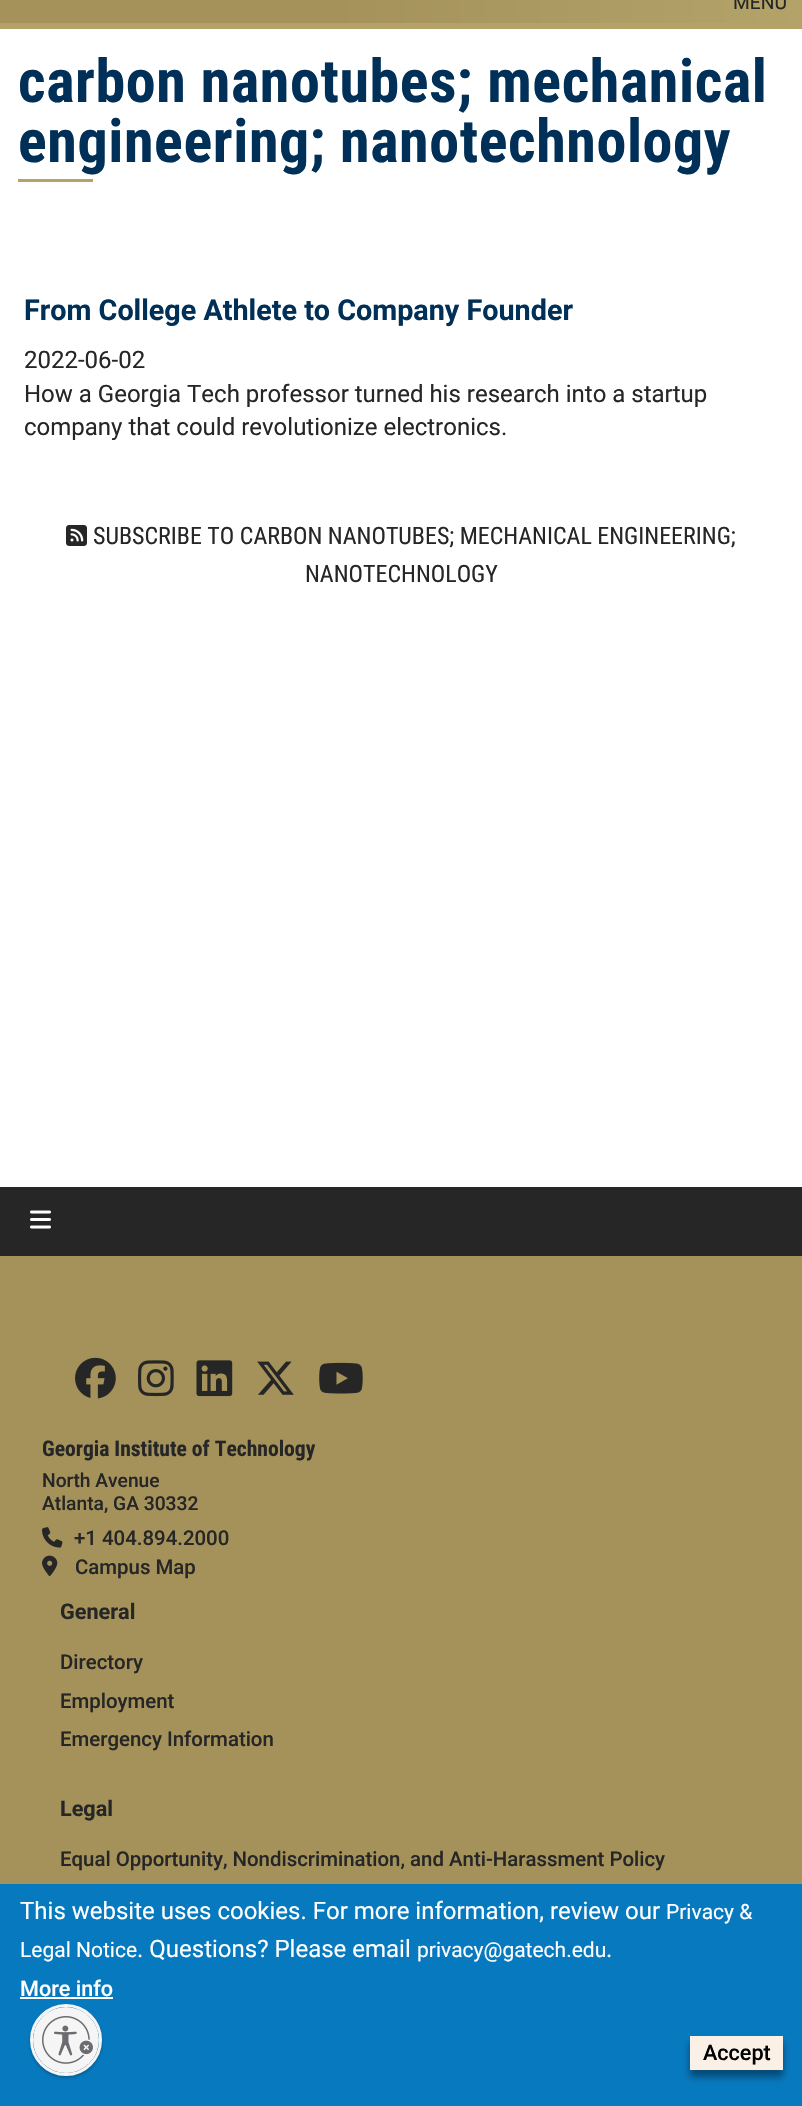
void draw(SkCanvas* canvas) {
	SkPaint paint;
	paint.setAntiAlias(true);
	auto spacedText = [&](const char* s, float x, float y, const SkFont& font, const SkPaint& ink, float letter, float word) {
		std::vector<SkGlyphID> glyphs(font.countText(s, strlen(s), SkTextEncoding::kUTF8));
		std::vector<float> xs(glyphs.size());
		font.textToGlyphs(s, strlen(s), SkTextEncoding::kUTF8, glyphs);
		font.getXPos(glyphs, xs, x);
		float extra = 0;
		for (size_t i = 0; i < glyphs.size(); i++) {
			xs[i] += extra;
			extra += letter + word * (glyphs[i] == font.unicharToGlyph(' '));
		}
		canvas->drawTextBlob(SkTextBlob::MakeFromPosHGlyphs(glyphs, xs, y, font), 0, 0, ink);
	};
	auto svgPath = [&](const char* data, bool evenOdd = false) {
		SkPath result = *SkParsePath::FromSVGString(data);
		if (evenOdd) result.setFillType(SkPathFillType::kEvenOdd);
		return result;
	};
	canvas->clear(0xffffffff);
	paint.setColor(0xffa4925a);
	canvas->drawRect(SkRect::MakeXYWH(0, 0, 335, 23), paint);
	{
		const SkColor colors[] = {0xffa4925a, 0xffb3a369};
		const float stops[] = {0, 1};
		const SkPoint ends[] = {{335, -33}, {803, -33}};
		paint.setShader(SkGradientShader::MakeLinear(ends, colors, stops, 2, SkTileMode::kClamp));
		paint.setAlpha(255);
	}
	canvas->drawRect(SkRect::MakeXYWH(335, 0, 467, 23), paint);
	SkFont f1(fontMgr->matchFamilyStyle("Roboto", SkFontStyle::Normal()), 19.25);
	f1.setSubpixel(true);
	paint.setShader(nullptr);
	paint.setColor(0xff262626);
	canvas->drawString("MENU", 733, 9, f1, paint);
	paint.setColor(0xffb3a369);
	canvas->drawRect(SkRect::MakeXYWH(0, 23, 802, 6), paint);
	SkFont f2(fontMgr->matchFamilyStyle("Roboto Condensed", SkFontStyle::Bold()), 60);
	f2.setSubpixel(true);
	paint.setColor(0xff003057);
	spacedText("carbon nanotubes; mechanical", 18, 102, f2, paint, 0.6, 0);
	spacedText("engineering; nanotechnology", 18, 162, f2, paint, 0.6, 0);
	paint.setColor(0xffb3a369);
	canvas->drawRect(SkRect::MakeXYWH(18, 179, 75, 3), paint);
	SkFont f3(fontMgr->matchFamilyStyle("Roboto", SkFontStyle::Bold()), 28.75);
	f3.setSubpixel(true);
	paint.setColor(0xff003057);
	canvas->drawString("From College Athlete to Company Founder", 24, 320, f3, paint);
	SkFont f4(fontMgr->matchFamilyStyle("Roboto", SkFontStyle::Normal()), 24);
	f4.setSubpixel(true);
	paint.setColor(0xff262626);
	canvas->drawString("2022-06-02", 24, 368, f4, paint);
	canvas->drawString("How a Georgia Tech professor turned his research into a startup", 24, 402, f4, paint);
	canvas->drawString("company that could revolutionize electronics.", 24, 435, f4, paint);
	canvas->drawImageRect(SkImages::DeferredFromEncodedData(SkData::MakeFromFileName("img1.png")), SkRect::MakeXYWH(66, 525, 21, 21), SkSamplingOptions());
	SkFont f5(fontMgr->matchFamilyStyle("Roboto Condensed", SkFontStyle::Normal()), 24);
	f5.setSubpixel(true);
	canvas->drawString("SUBSCRIBE TO CARBON NANOTUBES; MECHANICAL ENGINEERING;", 93, 544, f5, paint);
	canvas->drawString("NANOTECHNOLOGY", 305, 582, f5, paint);
	canvas->drawRect(SkRect::MakeXYWH(0, 1187, 802, 69), paint);
	canvas->drawImageRect(SkImages::DeferredFromEncodedData(SkData::MakeFromFileName("img2.png")), SkRect::MakeXYWH(30, 1210, 21, 19), SkSamplingOptions());
	paint.setColor(0xffa4925a);
	canvas->drawRect(SkRect::MakeXYWH(0, 1256, 802, 628), paint);
	canvas->drawImageRect(SkImages::DeferredFromEncodedData(SkData::MakeFromFileName("img3.png")), SkRect::MakeXYWH(75, 1357, 41, 42), SkSamplingOptions());
	canvas->drawImageRect(SkImages::DeferredFromEncodedData(SkData::MakeFromFileName("img4.png")), SkRect::MakeXYWH(138, 1360, 36, 37), SkSamplingOptions());
	canvas->drawImageRect(SkImages::DeferredFromEncodedData(SkData::MakeFromFileName("img5.png")), SkRect::MakeXYWH(196, 1360, 37, 37), SkSamplingOptions());
	canvas->drawImageRect(SkImages::DeferredFromEncodedData(SkData::MakeFromFileName("img6.png")), SkRect::MakeXYWH(257, 1361, 37, 34), SkSamplingOptions());
	canvas->drawImageRect(SkImages::DeferredFromEncodedData(SkData::MakeFromFileName("img7.png")), SkRect::MakeXYWH(319, 1362, 44, 32), SkSamplingOptions());
	SkFont f6(fontMgr->matchFamilyStyle("Roboto Condensed", SkFontStyle::Bold()), 21.6);
	f6.setSubpixel(true);
	paint.setColor(0xff262626);
	canvas->drawString("Georgia Institute of Technology", 42, 1456, f6, paint);
	SkFont f7(fontMgr->matchFamilyStyle("Roboto", SkFontStyle(500, SkFontStyle::kNormal_Width, SkFontStyle::kUpright_Slant)), 19.25);
	f7.setSubpixel(true);
	canvas->drawString("North Avenue", 42, 1487, f7, paint);
	canvas->drawString("Atlanta, GA 30332", 42, 1510, f7, paint);
	canvas->drawImageRect(SkImages::DeferredFromEncodedData(SkData::MakeFromFileName("img8.png")), SkRect::MakeXYWH(42, 1527, 21, 21), SkSamplingOptions());
	SkFont f8(fontMgr->matchFamilyStyle("Roboto", SkFontStyle(500, SkFontStyle::kNormal_Width, SkFontStyle::kUpright_Slant)), 20.4);
	f8.setSubpixel(true);
	canvas->drawString("+1 404.894.2000", 74, 1545, f8, paint);
	canvas->drawImageRect(SkImages::DeferredFromEncodedData(SkData::MakeFromFileName("img9.png")), SkRect::MakeXYWH(42, 1555, 16, 21), SkSamplingOptions());
	canvas->drawString("Campus Map", 75, 1574, f8, paint);
	SkFont f9(fontMgr->matchFamilyStyle("Roboto", SkFontStyle::Bold()), 21.6);
	f9.setSubpixel(true);
	canvas->drawString("General", 60, 1619, f9, paint);
	canvas->drawString("Directory", 60, 1669, f8, paint);
	canvas->drawString("Employment", 60, 1708, f8, paint);
	canvas->drawString("Emergency Information", 60, 1746, f8, paint);
	canvas->drawString("Legal", 60, 1816, f9, paint);
	canvas->drawString("Equal Opportunity, Nondiscrimination, and Anti-Harassment Policy", 60, 1866, f8, paint);
	paint.setColor(0xff0779bf);
	canvas->drawRect(SkRect::MakeXYWH(0, 1884, 802, 222), paint);
	paint.setColor(0xffffffff);
	canvas->drawString("This website uses cookies. For more information, review our", 20, 1919, f4, paint);
	SkFont f10(fontMgr->matchFamilyStyle("Roboto", SkFontStyle::Normal()), 21);
	f10.setSubpixel(true);
	canvas->drawString("Privacy &", 666, 1919, f10, paint);
	canvas->drawString("Legal Notice", 20, 1957, f10, paint);
	canvas->drawString(". Questions? Please email", 137, 1957, f4, paint);
	canvas->drawString("privacy@gatech.edu", 417, 1957, f10, paint);
	canvas->drawString(".", 606, 1957, f4, paint);
	SkFont f11(fontMgr->matchFamilyStyle("Roboto", SkFontStyle(500, SkFontStyle::kNormal_Width, SkFontStyle::kUpright_Slant)), 21.6);
	f11.setSubpixel(true);
	canvas->drawString("More info", 20, 1996, f11, paint);
	canvas->drawRect(SkRect::MakeXYWH(20, 1997, 93, 2), paint);
	paint.setColor(0x30000000);
	paint.setMaskFilter(SkMaskFilter::MakeBlur(kNormal_SkBlurStyle, 4));
	canvas->drawRect(SkRect::MakeXYWH(690, 2043, 93, 35), paint);
	paint.setMaskFilter(nullptr);
	paint.setColor(0x3d000000);
	paint.setMaskFilter(SkMaskFilter::MakeBlur(kNormal_SkBlurStyle, 3));
	canvas->drawRect(SkRect::MakeXYWH(690, 2042, 93, 34), paint);
	paint.setMaskFilter(nullptr);
	paint.setColor(0xfffaf0e6);
	canvas->drawRect(SkRect::MakeXYWH(690, 2036, 93, 34), paint);
	paint.setColor(0xff000000);
	canvas->drawString("Accept", 703, 2060, f11, paint);
	paint.setColor(0x3d000000);
	paint.setMaskFilter(SkMaskFilter::MakeBlur(kNormal_SkBlurStyle, 1.5));
	canvas->drawRoundRect(SkRect::MakeXYWH(30, 2006, 72, 72), 36, 36, paint);
	paint.setMaskFilter(nullptr);
	paint.setStroke(true);
	paint.setStrokeWidth(3);
	paint.setColor(0xfff5f5f5);
	canvas->drawCircle(66, 2040, 34.5, paint);
	canvas->save();
	canvas->clipPath(svgPath("M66 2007C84 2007 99 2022 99 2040C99 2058 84 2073 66 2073C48 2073 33 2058 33 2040C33 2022 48 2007 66 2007Z"), true);
	paint.setStroke(false);
	paint.setColor(0x3d000000);
	paint.setMaskFilter(SkMaskFilter::MakeBlur(kNormal_SkBlurStyle, 1.5));
	canvas->drawRoundRect(SkRect::MakeXYWH(33, 2009, 66, 66), 33, 33, paint);
	paint.setMaskFilter(nullptr);
	canvas->restore();
	paint.setColor(0xfff5f5f5);
	canvas->drawCircle(66, 2040, 33, paint);
	canvas->drawImageRect(SkImages::DeferredFromEncodedData(SkData::MakeFromFileName("img10.png")), SkRect::MakeXYWH(42, 2016, 51, 48), SkSamplingOptions());
}
